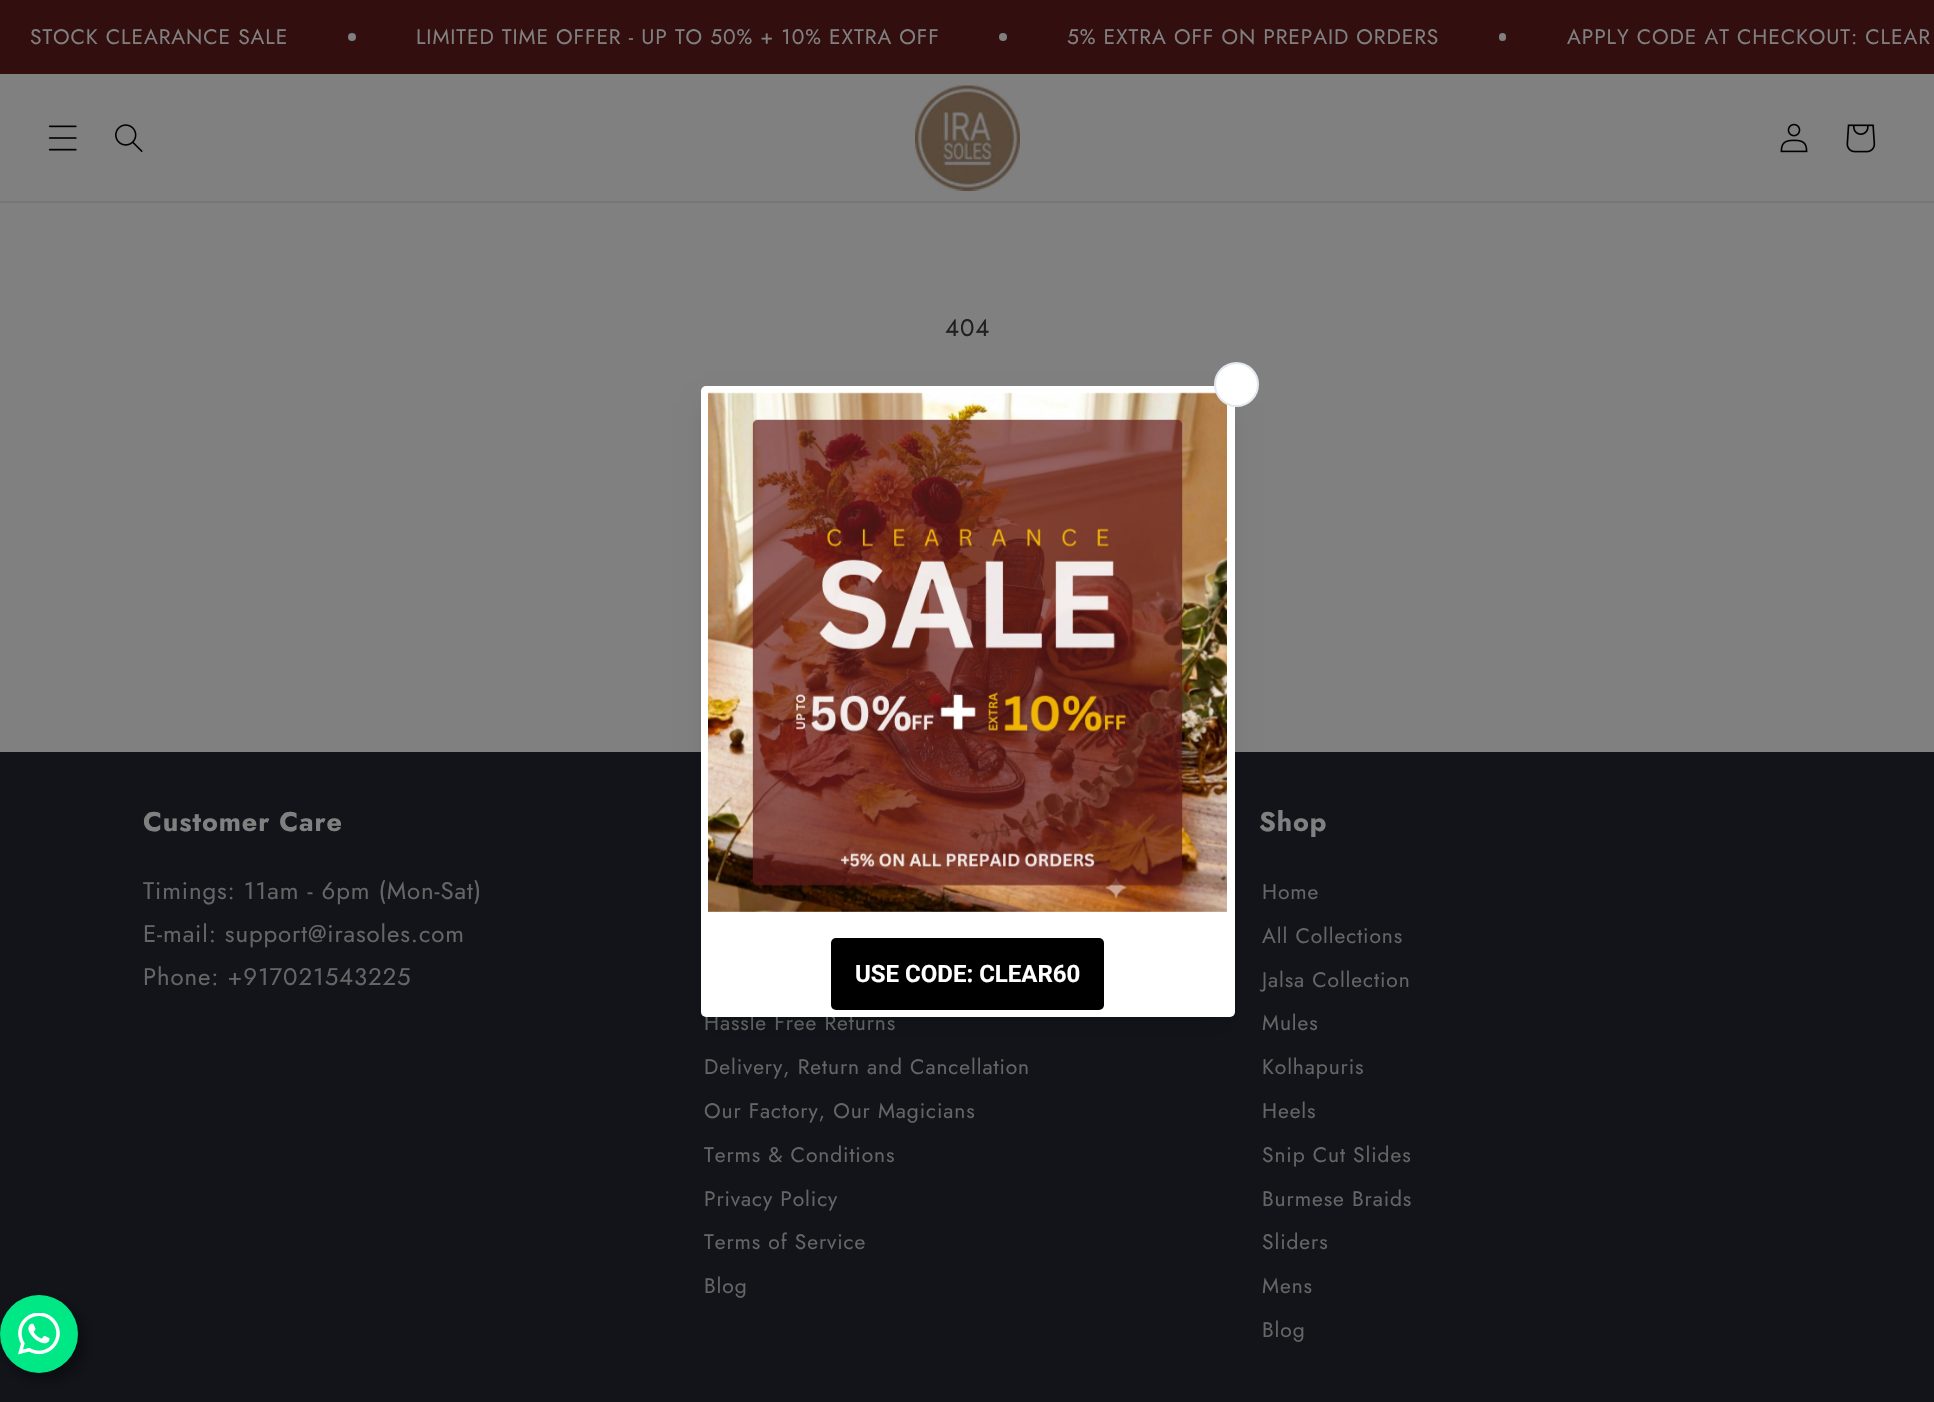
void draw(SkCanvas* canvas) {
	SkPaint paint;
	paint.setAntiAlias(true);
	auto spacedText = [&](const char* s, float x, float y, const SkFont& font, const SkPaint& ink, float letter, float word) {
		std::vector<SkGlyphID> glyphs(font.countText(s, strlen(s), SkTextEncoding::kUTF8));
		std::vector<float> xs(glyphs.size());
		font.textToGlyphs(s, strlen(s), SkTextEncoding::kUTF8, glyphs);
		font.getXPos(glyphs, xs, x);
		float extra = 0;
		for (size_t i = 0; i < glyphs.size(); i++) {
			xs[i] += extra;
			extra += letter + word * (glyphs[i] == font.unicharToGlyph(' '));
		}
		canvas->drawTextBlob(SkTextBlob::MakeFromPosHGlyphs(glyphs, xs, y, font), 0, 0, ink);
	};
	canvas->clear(0xff808080);
	paint.setColor(0xff320e0e);
	canvas->drawRect(SkRect::MakeXYWH(0, 0, 1934, 74), paint);
	SkFont f1(fontMgr->matchFamilyStyle("Jost", SkFontStyle::Normal()), 21);
	f1.setSubpixel(true);
	paint.setColor(0xff808080);
	spacedText("STOCK CLEARANCE SALE", 30, 44, f1, paint, 0.9, 0);
	canvas->drawCircle(352, 37, 4, paint);
	spacedText("LIMITED TIME OFFER - UP TO 50% + 10% EXTRA OFF", 416, 44, f1, paint, 0.9, 0);
	canvas->drawCircle(1003, 37, 4, paint);
	spacedText("5% EXTRA OFF ON PREPAID ORDERS", 1067, 44, f1, paint, 0.9, 0);
	canvas->drawRoundRect(SkRect::MakeXYWH(1499, 33, 7, 8), 3.5, 3.5, paint);
	spacedText("APPLY CODE AT CHECKOUT: CLEAR", 1567, 44, f1, paint, 0.9, 0);
	paint.setColor(0xff767676);
	canvas->drawRect(SkRect::MakeXYWH(0, 201, 1934, 2), paint);
	canvas->drawImageRect(SkImages::DeferredFromEncodedData(SkData::MakeFromFileName("img1.png")), SkRect::MakeXYWH(48, 125, 29, 26), SkSamplingOptions());
	canvas->drawImageRect(SkImages::DeferredFromEncodedData(SkData::MakeFromFileName("img2.png")), SkRect::MakeXYWH(115, 124, 28, 28), SkSamplingOptions());
	canvas->drawImageRect(SkImages::DeferredFromEncodedData(SkData::MakeFromFileName("img3.png")), SkRect::MakeXYWH(915, 85, 105, 106), SkSamplingOptions());
	canvas->drawImageRect(SkImages::DeferredFromEncodedData(SkData::MakeFromFileName("img4.png")), SkRect::MakeXYWH(1780, 123, 28, 30), SkSamplingOptions());
	canvas->drawImageRect(SkImages::DeferredFromEncodedData(SkData::MakeFromFileName("img5.png")), SkRect::MakeXYWH(1846, 124, 30, 29), SkSamplingOptions());
	SkFont f2(fontMgr->matchFamilyStyle("Jost", SkFontStyle::Normal()), 24);
	f2.setSubpixel(true);
	paint.setColor(0xff202020);
	spacedText("404", 945, 336, f2, paint, 0.9, 0);
	paint.setColor(0xff12141a);
	canvas->drawRect(SkRect::MakeXYWH(0, 752, 1934, 650), paint);
	SkFont f3(fontMgr->matchFamilyStyle("Jost", SkFontStyle::Bold()), 27);
	f3.setSubpixel(true);
	paint.setColor(0xff808080);
	spacedText("Customer Care", 143, 831, f3, paint, 0.9, 0);
	paint.setColor(0xff646566);
	spacedText("Timings: 11am - 6pm (Mon-Sat)", 143, 899, f2, paint, 0.9, 0);
	spacedText("E-mail: support@irasoles.com", 143, 942, f2, paint, 0.9, 0);
	spacedText("Phone: +917021543225", 143, 985, f2, paint, 0.9, 0);
	paint.setColor(0xff808080);
	spacedText("Shop", 1259, 831, f3, paint, 0.9, 0);
	paint.setColor(0xff646566);
	spacedText("Home", 1262, 899, f1, paint, 0.9, 0);
	spacedText("All Collections", 1262, 943, f1, paint, 0.9, 0);
	spacedText("Jalsa Collection", 1262, 987, f1, paint, 0.9, 0);
	spacedText("Mules", 1262, 1030, f1, paint, 0.9, 0);
	spacedText("Kolhapuris", 1262, 1074, f1, paint, 0.9, 0);
	spacedText("Heels", 1262, 1118, f1, paint, 0.9, 0);
	spacedText("Snip Cut Slides", 1262, 1162, f1, paint, 0.9, 0);
	spacedText("Burmese Braids", 1262, 1206, f1, paint, 0.9, 0);
	spacedText("Sliders", 1262, 1249, f1, paint, 0.9, 0);
	spacedText("Mens", 1262, 1293, f1, paint, 0.9, 0);
	spacedText("Blog", 1262, 1337, f1, paint, 0.9, 0);
	spacedText("Hassle Free Returns", 704, 1030, f1, paint, 0.9, 0);
	spacedText("Delivery, Return and Cancellation", 704, 1074, f1, paint, 0.9, 0);
	spacedText("Our Factory, Our Magicians", 704, 1118, f1, paint, 0.9, 0);
	spacedText("Terms & Conditions", 704, 1162, f1, paint, 0.9, 0);
	spacedText("Privacy Policy", 704, 1206, f1, paint, 0.9, 0);
	spacedText("Terms of Service", 704, 1249, f1, paint, 0.9, 0);
	spacedText("Blog", 704, 1293, f1, paint, 0.9, 0);
	paint.setColor(0x1a000000);
	paint.setMaskFilter(SkMaskFilter::MakeBlur(kNormal_SkBlurStyle, 11));
	canvas->drawRect(SkRect::MakeXYWH(705, 405, 525, 623), paint);
	paint.setMaskFilter(nullptr);
	paint.setColor(0xffffffff);
	canvas->drawRoundRect(SkRect::MakeXYWH(701, 386, 534, 631), 5, 5, paint);
	canvas->drawImageRect(SkImages::DeferredFromEncodedData(SkData::MakeFromFileName("img6.png")), SkRect::MakeXYWH(708, 392, 519, 520), SkSamplingOptions());
	canvas->drawCircle(1236.5, 384.5, 21.5, paint);
	paint.setStroke(true);
	paint.setStrokeWidth(2);
	paint.setColor(0xffe2e8f0);
	canvas->drawCircle(1236.5, 384.5, 21.5, paint);
	paint.setStroke(false);
	paint.setColor(0xff000000);
	canvas->drawRoundRect(SkRect::MakeXYWH(831, 938, 273, 72), 5, 5, paint);
	SkFont f4(fontMgr->matchFamilyStyle("Roboto", SkFontStyle::Bold()), 24);
	f4.setSubpixel(true);
	paint.setColor(0xffffffff);
	canvas->drawString("USE CODE: CLEAR60", 855, 982, f4, paint);
	paint.setColor(0x66000000);
	paint.setMaskFilter(SkMaskFilter::MakeBlur(kNormal_SkBlurStyle, 7.5));
	canvas->drawRoundRect(SkRect::MakeXYWH(6, 1302, 78, 78), 39, 39, paint);
	paint.setMaskFilter(nullptr);
	paint.setColor(0xff00e785);
	canvas->drawCircle(39, 1334, 39, paint);
	canvas->drawImageRect(SkImages::DeferredFromEncodedData(SkData::MakeFromFileName("img7.png")), SkRect::MakeXYWH(18, 1313, 42, 42), SkSamplingOptions());
}
